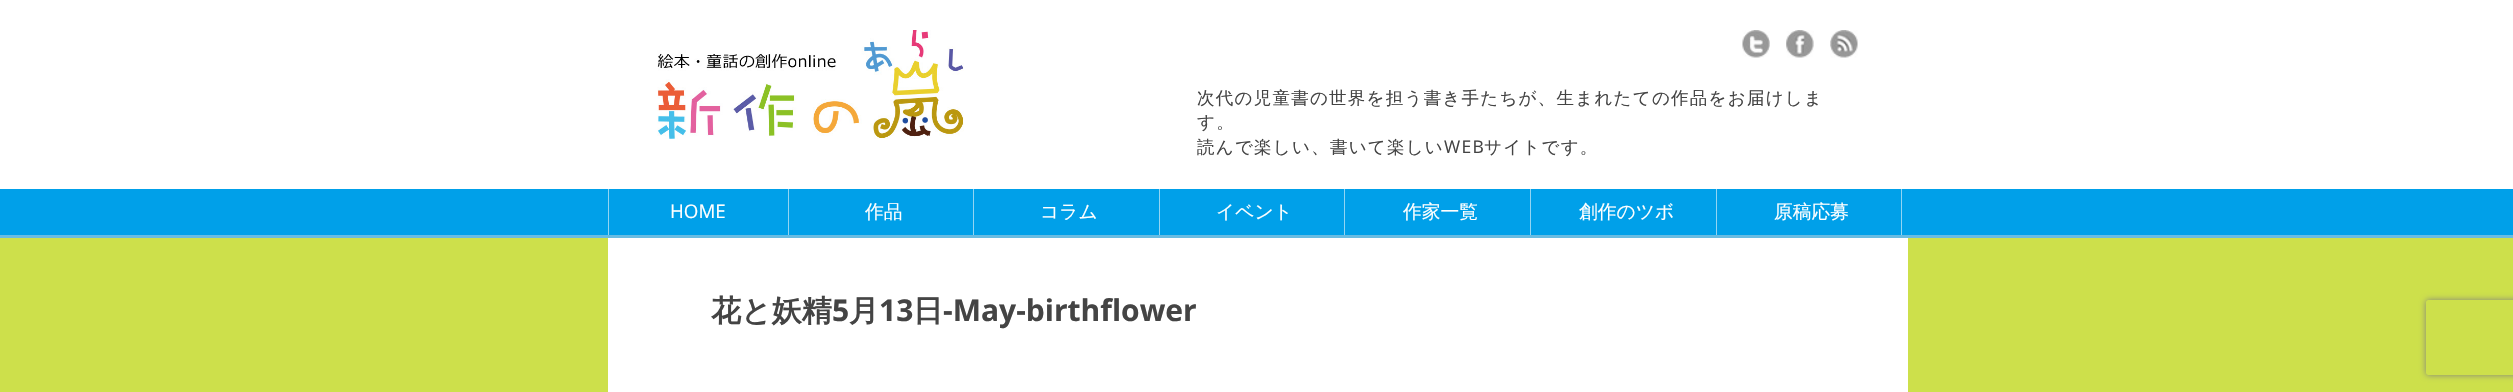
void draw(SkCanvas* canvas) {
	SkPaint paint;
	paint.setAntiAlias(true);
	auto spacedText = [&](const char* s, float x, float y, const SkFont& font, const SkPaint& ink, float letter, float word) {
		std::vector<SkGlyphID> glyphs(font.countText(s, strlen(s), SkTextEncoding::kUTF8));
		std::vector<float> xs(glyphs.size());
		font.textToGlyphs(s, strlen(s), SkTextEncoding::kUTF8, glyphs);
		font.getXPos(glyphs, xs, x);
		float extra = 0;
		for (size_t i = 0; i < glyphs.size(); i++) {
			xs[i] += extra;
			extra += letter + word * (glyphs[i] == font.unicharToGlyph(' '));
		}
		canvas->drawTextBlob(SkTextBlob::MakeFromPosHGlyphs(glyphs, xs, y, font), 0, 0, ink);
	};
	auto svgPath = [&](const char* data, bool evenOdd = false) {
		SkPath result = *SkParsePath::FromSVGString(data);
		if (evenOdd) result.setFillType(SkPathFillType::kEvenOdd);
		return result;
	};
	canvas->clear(0xffcde04b);
	paint.setColor(0xffffffff);
	canvas->drawRect(SkRect::MakeXYWH(0, 0, 2513, 189), paint);
	canvas->drawImageRect(SkImages::DeferredFromEncodedData(SkData::MakeFromFileName("img1.png")), SkRect::MakeXYWH(657, 30, 307, 109), SkSamplingOptions());
	canvas->drawImageRect(SkImages::DeferredFromEncodedData(SkData::MakeFromFileName("img2.png")), SkRect::MakeXYWH(1742, 30, 28, 28), SkSamplingOptions());
	canvas->drawImageRect(SkImages::DeferredFromEncodedData(SkData::MakeFromFileName("img3.png")), SkRect::MakeXYWH(1786, 30, 28, 28), SkSamplingOptions());
	canvas->drawImageRect(SkImages::DeferredFromEncodedData(SkData::MakeFromFileName("img4.png")), SkRect::MakeXYWH(1830, 30, 28, 28), SkSamplingOptions());
	SkFont f1(fontMgr->matchFamilyStyle("WenQuanYi Zen Hei", SkFontStyle(500, SkFontStyle::kNormal_Width, SkFontStyle::kUpright_Slant)), 17.5);
	f1.setSubpixel(true);
	paint.setColor(0xff444444);
	spacedText("次代の児童書の世界を担う書き手たちが、生まれたての作品をお届けしま", 1197, 104, f1, paint, 1.25, 0);
	spacedText("す。", 1197, 128, f1, paint, 1.25, 0);
	spacedText("読んで楽しい、書いて楽しい", 1197, 153, f1, paint, 1.25, 0);
	SkFont f2(fontMgr->matchFamilyStyle("Open Sans", SkFontStyle::Normal()), 17.5);
	f2.setSubpixel(true);
	spacedText("WEB", 1444, 153, f2, paint, 1.25, 0);
	spacedText("サイトです。", 1484, 153, f1, paint, 1.25, 0);
	paint.setColor(0xff00a0e9);
	canvas->drawRect(SkRect::MakeXYWH(0, 189, 2513, 46), paint);
	paint.setColor(0xff69bce2);
	canvas->drawRect(SkRect::MakeXYWH(0, 235, 2513, 3), paint);
	paint.setColor(0xff93d5f3);
	canvas->drawRect(SkRect::MakeXYWH(608, 189, 1, 46), paint);
	canvas->drawRect(SkRect::MakeXYWH(788, 189, 1, 46), paint);
	SkFont f3(fontMgr->matchFamilyStyle("Open Sans", SkFontStyle::Normal()), 18.75);
	f3.setSubpixel(true);
	paint.setColor(0xffffffff);
	canvas->drawString("HOME", 670, 218, f3, paint);
	paint.setColor(0xff93d5f3);
	canvas->drawRect(SkRect::MakeXYWH(973, 189, 1, 46), paint);
	SkFont f4(fontMgr->matchFamilyStyle("WenQuanYi Zen Hei", SkFontStyle(500, SkFontStyle::kNormal_Width, SkFontStyle::kUpright_Slant)), 18.75);
	f4.setSubpixel(true);
	paint.setColor(0xffffffff);
	canvas->drawString("作品", 865, 218, f4, paint);
	paint.setColor(0xff93d5f3);
	canvas->drawRect(SkRect::MakeXYWH(1159, 189, 1, 46), paint);
	paint.setColor(0xffffffff);
	canvas->drawString("コラム", 1040, 218, f4, paint);
	paint.setColor(0xff93d5f3);
	canvas->drawRect(SkRect::MakeXYWH(1344, 189, 1, 46), paint);
	paint.setColor(0xffffffff);
	canvas->drawString("イベント", 1216, 218, f4, paint);
	paint.setColor(0xff93d5f3);
	canvas->drawRect(SkRect::MakeXYWH(1530, 189, 1, 46), paint);
	paint.setColor(0xffffffff);
	canvas->drawString("作家一覧", 1403, 218, f4, paint);
	paint.setColor(0xff93d5f3);
	canvas->drawRect(SkRect::MakeXYWH(1716, 189, 1, 46), paint);
	paint.setColor(0xffffffff);
	canvas->drawString("創作のツボ", 1579, 218, f4, paint);
	paint.setColor(0xff93d5f3);
	canvas->drawRect(SkRect::MakeXYWH(1901, 189, 1, 46), paint);
	paint.setColor(0xffffffff);
	canvas->drawString("原稿応募", 1774, 218, f4, paint);
	canvas->drawRect(SkRect::MakeXYWH(608, 238, 1300, 154), paint);
	SkFont f5(fontMgr->matchFamilyStyle("WenQuanYi Zen Hei", SkFontStyle::Bold()), 30);
	f5.setSubpixel(true);
	paint.setColor(0xff444444);
	canvas->drawString("花と妖精", 711, 321, f5, paint);
	SkFont f6(fontMgr->matchFamilyStyle("Open Sans", SkFontStyle::Bold()), 30);
	f6.setSubpixel(true);
	canvas->drawString("5", 832, 321, f6, paint);
	canvas->drawString("月", 849, 321, f5, paint);
	canvas->drawString("13", 879, 321, f6, paint);
	canvas->drawString("日", 913, 321, f5, paint);
	canvas->drawString("-May-birthflower", 943, 321, f6, paint);
	canvas->save();
	canvas->clipPath(svgPath("M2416 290H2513V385H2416ZM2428.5 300H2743.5C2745 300 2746 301 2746 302.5V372.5C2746 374 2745 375 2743.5 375H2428.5C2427 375 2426 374 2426 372.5V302.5C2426 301 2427 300 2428.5 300Z", true), true);
	paint.setColor(0xff808080);
	paint.setMaskFilter(SkMaskFilter::MakeBlur(kNormal_SkBlurStyle, 3));
	canvas->drawRoundRect(SkRect::MakeXYWH(2426, 300, 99, 75), 2.5, 2.5, paint);
	paint.setMaskFilter(nullptr);
	canvas->restore();
}
